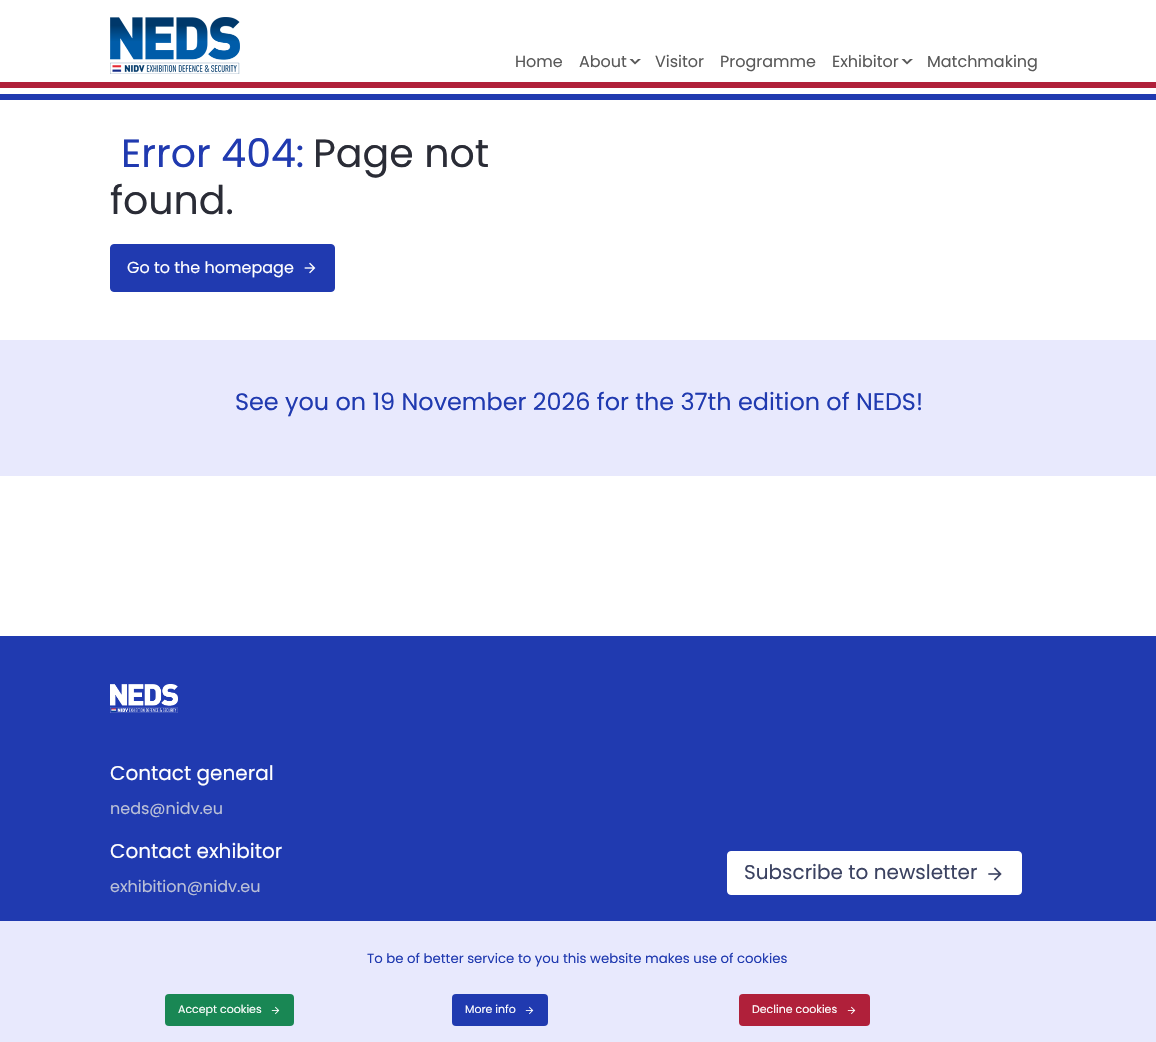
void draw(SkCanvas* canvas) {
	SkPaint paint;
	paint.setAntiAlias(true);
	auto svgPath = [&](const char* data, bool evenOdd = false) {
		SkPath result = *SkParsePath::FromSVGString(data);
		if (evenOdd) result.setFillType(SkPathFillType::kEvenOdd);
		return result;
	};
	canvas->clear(0xffffffff);
	canvas->drawImageRect(SkImages::DeferredFromEncodedData(SkData::MakeFromFileName("img1.png")), SkRect::MakeXYWH(110, 17, 130, 57), SkSamplingOptions());
	SkFont f1(fontMgr->matchFamilyStyle("Poppins", SkFontStyle::Normal()), 16);
	f1.setSubpixel(true);
	paint.setColor(0xff595959);
	canvas->drawString("Home", 515, 67, f1, paint);
	canvas->drawString("About", 579, 67, f1, paint);
	canvas->drawPath(svgPath("M641 59L635 64.5V62L638 59ZM635 64.5L629.5 59H632.5L635 62Z"), paint);
	canvas->drawString("Visitor", 655, 67, f1, paint);
	canvas->drawString("Programme", 720, 67, f1, paint);
	canvas->drawString("Exhibitor", 832, 67, f1, paint);
	canvas->drawPath(svgPath("M913 59L907 64.5V62L910 59ZM907 64.5L901.5 59H904.5L907 62Z"), paint);
	canvas->drawString("Matchmaking", 927, 67, f1, paint);
	paint.setColor(0xffb0203a);
	canvas->drawRect(SkRect::MakeXYWH(0, 82, 1156, 6), paint);
	paint.setColor(0xff203ab0);
	canvas->drawRect(SkRect::MakeXYWH(0, 94, 1156, 6), paint);
	SkFont f2(fontMgr->matchFamilyStyle("Poppins", SkFontStyle::Normal()), 39.5);
	f2.setSubpixel(true);
	canvas->drawString("Error 404:", 121, 167, f2, paint);
	paint.setColor(0xff2a2c36);
	canvas->drawString("Page not", 313, 167, f2, paint);
	canvas->drawString("found.", 110, 214, f2, paint);
	paint.setColor(0xff203ab0);
	canvas->drawRoundRect(SkRect::MakeXYWH(110.5, 244.5, 224, 47), 3.5, 3.5, paint);
	paint.setStroke(true);
	paint.setStrokeWidth(1);
	canvas->drawRoundRect(SkRect::MakeXYWH(110.5, 244.5, 224, 47), 3.5, 3.5, paint);
	paint.setStroke(false);
	paint.setColor(0xffffffff);
	canvas->drawString("Go to the homepage", 127, 273, f1, paint);
	canvas->drawImageRect(SkImages::DeferredFromEncodedData(SkData::MakeFromFileName("img2.png")), SkRect::MakeXYWH(304, 262, 12, 12), SkSamplingOptions());
	paint.setColor(0xffe8e9fd);
	canvas->drawRect(SkRect::MakeXYWH(0, 340, 1156, 136), paint);
	SkFont f3(fontMgr->matchFamilyStyle("Poppins", SkFontStyle::Normal()), 23.9);
	f3.setSubpixel(true);
	paint.setColor(0xff203ab0);
	canvas->drawString("See you on 19 November 2026 for the 37th edition of NEDS!", 235, 410, f3, paint);
	canvas->drawRect(SkRect::MakeXYWH(0, 636, 1156, 285), paint);
	canvas->drawImageRect(SkImages::DeferredFromEncodedData(SkData::MakeFromFileName("img3.png")), SkRect::MakeXYWH(110, 684, 68, 29), SkSamplingOptions());
	SkFont f4(fontMgr->matchFamilyStyle("Poppins", SkFontStyle::Normal()), 20);
	f4.setSubpixel(true);
	paint.setColor(0xffffffff);
	canvas->drawString("Contact general", 110, 780, f4, paint);
	paint.setColor(0xffbac0d7);
	canvas->drawString("neds@nidv.eu", 110, 814, f1, paint);
	paint.setColor(0xffffffff);
	canvas->drawString("Contact exhibitor", 110, 858, f4, paint);
	paint.setColor(0xffbac0d7);
	canvas->drawString("exhibition@nidv.eu", 110, 892, f1, paint);
	paint.setColor(0xffffffff);
	canvas->drawRoundRect(SkRect::MakeXYWH(727.5, 851.5, 294, 43), 3.5, 3.5, paint);
	paint.setStroke(true);
	canvas->drawRoundRect(SkRect::MakeXYWH(727.5, 851.5, 294, 43), 3.5, 3.5, paint);
	paint.setStroke(false);
	paint.setColor(0xff3b4261);
	canvas->drawString("Subscribe to newsletter", 744, 879, f4, paint);
	canvas->drawImageRect(SkImages::DeferredFromEncodedData(SkData::MakeFromFileName("img4.png")), SkRect::MakeXYWH(988, 867, 14, 14), SkSamplingOptions());
	paint.setColor(0xffe8e9fd);
	canvas->drawRect(SkRect::MakeXYWH(0, 921, 1156, 121), paint);
	SkFont f5(fontMgr->matchFamilyStyle("Poppins", SkFontStyle::Normal()), 13.3);
	f5.setSubpixel(true);
	paint.setColor(0xff203ab0);
	canvas->drawString("To be of better service to you this website makes use of cookies", 367, 963, f5, paint);
	paint.setColor(0xff198754);
	canvas->drawRoundRect(SkRect::MakeXYWH(165, 994, 129, 32), 4, 4, paint);
	SkFont f6(fontMgr->matchFamilyStyle("Poppins", SkFontStyle::Normal()), 11);
	f6.setSubpixel(true);
	paint.setColor(0xffffffff);
	canvas->drawString("Accept cookies", 178, 1013, f6, paint);
	canvas->drawImageRect(SkImages::DeferredFromEncodedData(SkData::MakeFromFileName("img5.png")), SkRect::MakeXYWH(271, 1006, 9, 9), SkSamplingOptions());
	paint.setColor(0xff203ab0);
	canvas->drawRoundRect(SkRect::MakeXYWH(452, 994, 96, 32), 4, 4, paint);
	paint.setColor(0xffffffff);
	canvas->drawString("More info", 465, 1013, f6, paint);
	canvas->drawImageRect(SkImages::DeferredFromEncodedData(SkData::MakeFromFileName("img6.png")), SkRect::MakeXYWH(525, 1006, 9, 9), SkSamplingOptions());
	paint.setColor(0xffb0203a);
	canvas->drawRoundRect(SkRect::MakeXYWH(739, 994, 131, 32), 4, 4, paint);
	paint.setColor(0xffffffff);
	canvas->drawString("Decline cookies", 752, 1013, f6, paint);
	canvas->drawImageRect(SkImages::DeferredFromEncodedData(SkData::MakeFromFileName("img7.png")), SkRect::MakeXYWH(847, 1006, 9, 9), SkSamplingOptions());
}
